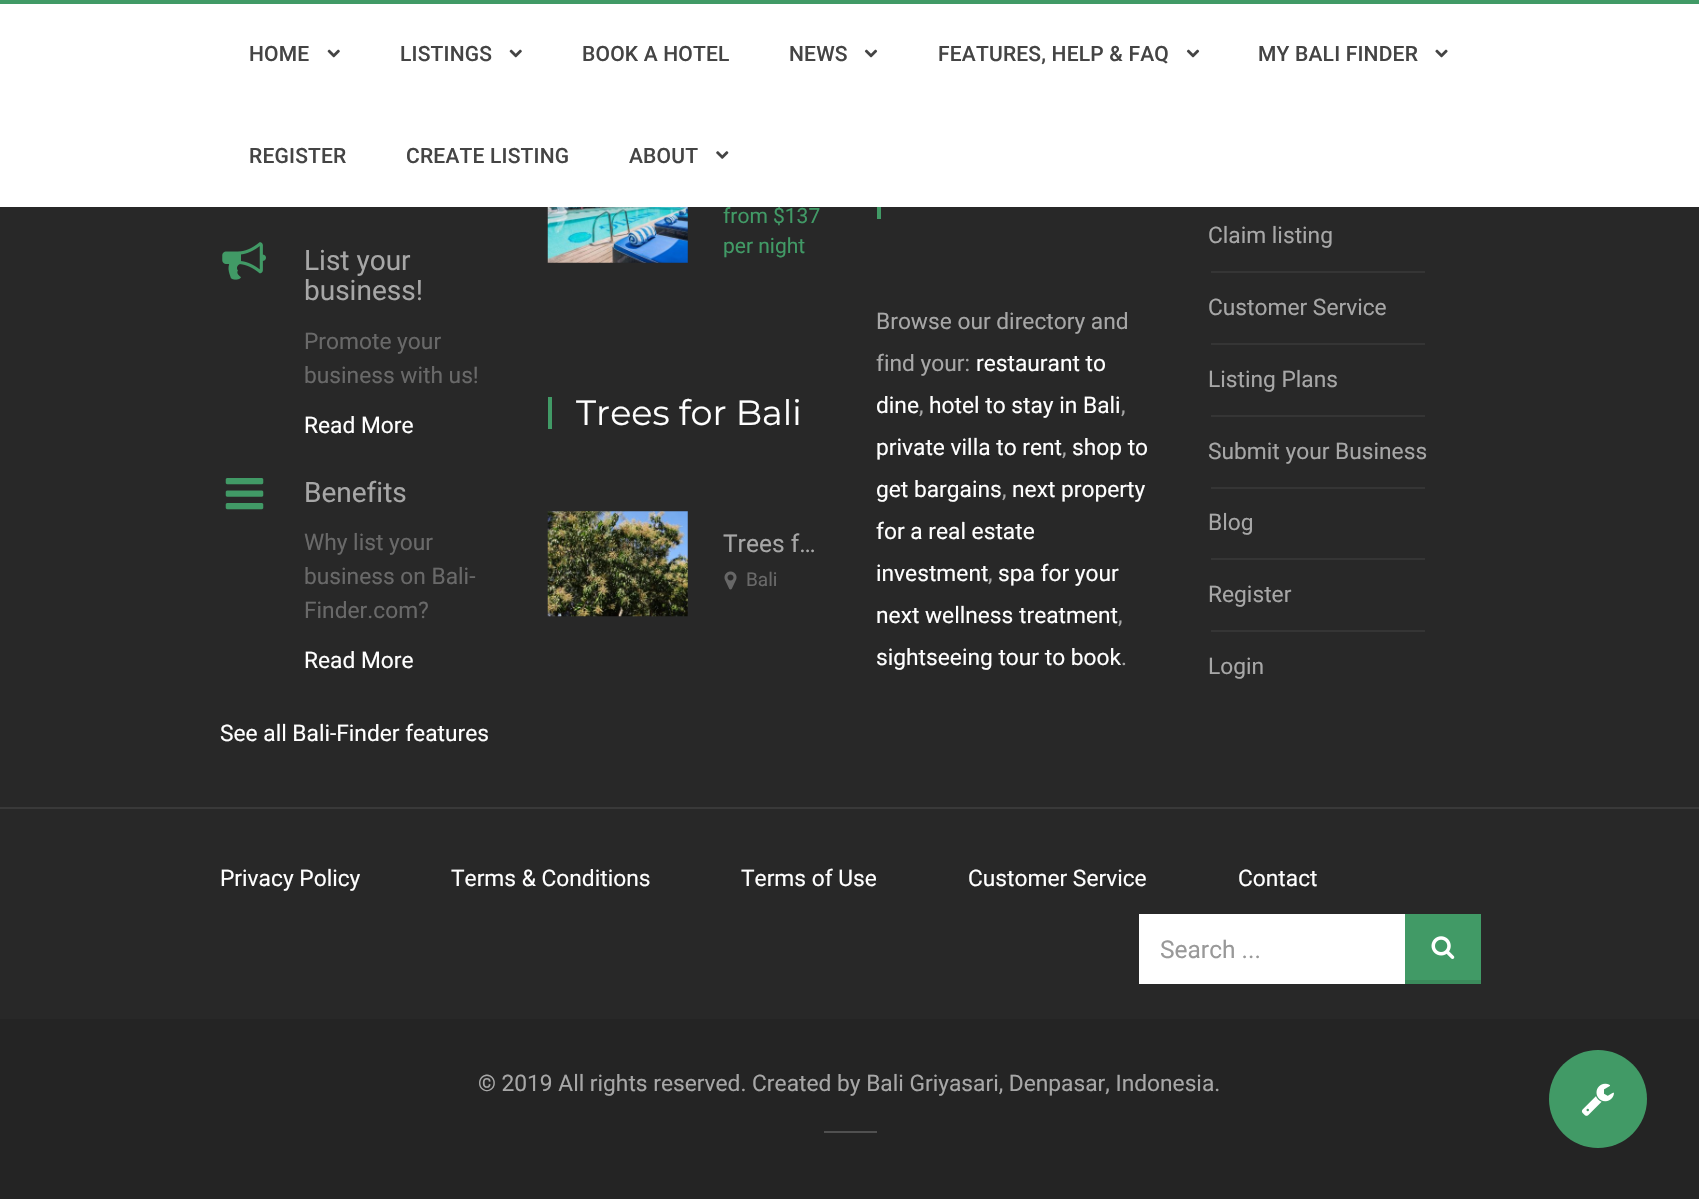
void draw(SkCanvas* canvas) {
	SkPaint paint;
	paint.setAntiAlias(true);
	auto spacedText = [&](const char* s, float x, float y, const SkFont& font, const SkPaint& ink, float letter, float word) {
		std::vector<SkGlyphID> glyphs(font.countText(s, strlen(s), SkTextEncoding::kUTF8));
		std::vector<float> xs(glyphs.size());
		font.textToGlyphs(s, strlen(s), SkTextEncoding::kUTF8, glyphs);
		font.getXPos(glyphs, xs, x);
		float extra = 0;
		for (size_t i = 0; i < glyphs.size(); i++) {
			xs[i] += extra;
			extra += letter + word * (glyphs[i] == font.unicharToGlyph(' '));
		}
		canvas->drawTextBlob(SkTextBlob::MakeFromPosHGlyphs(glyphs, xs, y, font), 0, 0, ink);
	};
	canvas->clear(0xff282828);
	paint.setColor(0xff419a66);
	canvas->drawRect(SkRect::MakeXYWH(0, 0, 1699, 4), paint);
	SkFont f1(fontMgr->matchFamilyStyle("Roboto", SkFontStyle::Normal()), 21);
	f1.setSubpixel(true);
	canvas->drawString("from $137", 723, 223, f1, paint);
	paint.setColor(0xffffffff);
	canvas->drawRect(SkRect::MakeXYWH(0, 4, 1699, 203), paint);
	SkFont f2(fontMgr->matchFamilyStyle("Roboto", SkFontStyle(500, SkFontStyle::kNormal_Width, SkFontStyle::kUpright_Slant)), 21);
	f2.setSubpixel(true);
	paint.setColor(0xff444444);
	spacedText("HOME", 249, 61, f2, paint, 0.2, 0);
	canvas->drawImageRect(SkImages::DeferredFromEncodedData(SkData::MakeFromFileName("img1.png")), SkRect::MakeXYWH(327, 49, 13, 9), SkSamplingOptions());
	spacedText("LISTINGS", 400, 61, f2, paint, 0.2, 0);
	canvas->drawImageRect(SkImages::DeferredFromEncodedData(SkData::MakeFromFileName("img1.png")), SkRect::MakeXYWH(509, 49, 13, 9), SkSamplingOptions());
	spacedText("BOOK A HOTEL", 582, 61, f2, paint, 0.2, 0);
	spacedText("NEWS", 789, 61, f2, paint, 0.2, 0);
	canvas->drawImageRect(SkImages::DeferredFromEncodedData(SkData::MakeFromFileName("img2.png")), SkRect::MakeXYWH(864, 49, 14, 9), SkSamplingOptions());
	spacedText("FEATURES, HELP & FAQ", 938, 61, f2, paint, 0.2, 0);
	canvas->drawImageRect(SkImages::DeferredFromEncodedData(SkData::MakeFromFileName("img2.png")), SkRect::MakeXYWH(1186, 49, 14, 9), SkSamplingOptions());
	spacedText("MY BALI FINDER", 1258, 61, f2, paint, 0.2, 0);
	canvas->drawImageRect(SkImages::DeferredFromEncodedData(SkData::MakeFromFileName("img3.png")), SkRect::MakeXYWH(1435, 49, 13, 9), SkSamplingOptions());
	spacedText("REGISTER", 249, 163, f2, paint, 0.2, 0);
	spacedText("CREATE LISTING", 406, 163, f2, paint, 0.2, 0);
	spacedText("ABOUT", 629, 163, f2, paint, 0.2, 0);
	canvas->drawImageRect(SkImages::DeferredFromEncodedData(SkData::MakeFromFileName("img4.png")), SkRect::MakeXYWH(716, 151, 13, 8), SkSamplingOptions());
	paint.setColor(0xff393939);
	canvas->drawRect(SkRect::MakeXYWH(0, 807, 1699, 2), paint);
	canvas->drawImageRect(SkImages::DeferredFromEncodedData(SkData::MakeFromFileName("img5.png")), SkRect::MakeXYWH(222, 242, 44, 38), SkSamplingOptions());
	SkFont f3(fontMgr->matchFamilyStyle("Roboto", SkFontStyle::Normal()), 28);
	f3.setSubpixel(true);
	paint.setColor(0xffa7a7a7);
	canvas->drawString("List your", 304, 270, f3, paint);
	canvas->drawString("business!", 304, 300, f3, paint);
	SkFont f4(fontMgr->matchFamilyStyle("Roboto", SkFontStyle::Normal()), 22.75);
	f4.setSubpixel(true);
	paint.setColor(0xff696969);
	canvas->drawString("Promote your", 304, 349, f4, paint);
	canvas->drawString("business with us!", 304, 383, f4, paint);
	paint.setColor(0xffffffff);
	canvas->drawString("Read More", 304, 433, f4, paint);
	canvas->drawImageRect(SkImages::DeferredFromEncodedData(SkData::MakeFromFileName("img6.png")), SkRect::MakeXYWH(225, 478, 39, 32), SkSamplingOptions());
	paint.setColor(0xffa7a7a7);
	canvas->drawString("Benefits", 304, 502, f3, paint);
	paint.setColor(0xff696969);
	canvas->drawString("Why list your", 304, 550, f4, paint);
	canvas->drawString("business on Bali-", 304, 584, f4, paint);
	canvas->drawString("Finder.com?", 304, 618, f4, paint);
	paint.setColor(0xffffffff);
	canvas->drawString("Read More", 304, 668, f4, paint);
	canvas->drawString("See all Bali-Finder features", 220, 741, f4, paint);
	canvas->drawImageRect(SkImages::DeferredFromEncodedData(SkData::MakeFromFileName("img7.png")), SkRect::MakeXYWH(547, 207, 141, 56), SkSamplingOptions());
	paint.setColor(0xff419a66);
	canvas->drawString("per night", 723, 253, f1, paint);
	canvas->drawRect(SkRect::MakeXYWH(548, 397, 4, 32), paint);
	SkFont f5(fontMgr->matchFamilyStyle("Montserrat", SkFontStyle::Normal()), 35);
	f5.setSubpixel(true);
	paint.setColor(0xffffffff);
	canvas->drawString("Trees for Bali", 576, 425, f5, paint);
	canvas->drawImageRect(SkImages::DeferredFromEncodedData(SkData::MakeFromFileName("img8.png")), SkRect::MakeXYWH(547, 511, 141, 106), SkSamplingOptions());
	SkFont f6(fontMgr->matchFamilyStyle("Roboto", SkFontStyle::Normal()), 24.5);
	f6.setSubpixel(true);
	paint.setColor(0xffa7a7a7);
	canvas->drawString("Trees f…", 723, 552, f6, paint);
	canvas->drawImageRect(SkImages::DeferredFromEncodedData(SkData::MakeFromFileName("img9.png")), SkRect::MakeXYWH(724, 571, 13, 19), SkSamplingOptions());
	SkFont f7(fontMgr->matchFamilyStyle("Roboto", SkFontStyle::Normal()), 19);
	f7.setSubpixel(true);
	paint.setColor(0xff696969);
	canvas->drawString("Bali", 746, 586, f7, paint);
	paint.setColor(0xff419a66);
	canvas->drawRect(SkRect::MakeXYWH(877, 207, 4, 12), paint);
	paint.setColor(0xffa7a7a7);
	canvas->drawString("Browse our directory and", 876, 329, f4, paint);
	canvas->drawString("find your:", 876, 371, f4, paint);
	paint.setColor(0xffffffff);
	canvas->drawString("restaurant to", 976, 371, f4, paint);
	canvas->drawString("dine", 876, 413, f4, paint);
	paint.setColor(0xffa7a7a7);
	canvas->drawString(",", 919, 413, f4, paint);
	paint.setColor(0xffffffff);
	canvas->drawString("hotel to stay in Bali", 929, 413, f4, paint);
	paint.setColor(0xffa7a7a7);
	canvas->drawString(",", 1121, 413, f4, paint);
	paint.setColor(0xffffffff);
	canvas->drawString("private villa to rent", 876, 455, f4, paint);
	paint.setColor(0xffa7a7a7);
	canvas->drawString(",", 1062, 455, f4, paint);
	paint.setColor(0xffffffff);
	canvas->drawString("shop to", 1072, 455, f4, paint);
	canvas->drawString("get bargains", 876, 497, f4, paint);
	paint.setColor(0xffa7a7a7);
	canvas->drawString(",", 1002, 497, f4, paint);
	paint.setColor(0xffffffff);
	canvas->drawString("next property", 1012, 497, f4, paint);
	canvas->drawString("for a real estate", 876, 539, f4, paint);
	canvas->drawString("investment", 876, 581, f4, paint);
	paint.setColor(0xffa7a7a7);
	canvas->drawString(",", 988, 581, f4, paint);
	paint.setColor(0xffffffff);
	canvas->drawString("spa for your", 998, 581, f4, paint);
	canvas->drawString("next wellness treatment", 876, 623, f4, paint);
	paint.setColor(0xffa7a7a7);
	canvas->drawString(",", 1118, 623, f4, paint);
	paint.setColor(0xffffffff);
	canvas->drawString("sightseeing tour to book", 876, 665, f4, paint);
	paint.setColor(0xffa7a7a7);
	canvas->drawString(".", 1121, 665, f4, paint);
	paint.setColor(0xff353535);
	canvas->drawRect(SkRect::MakeXYWH(1211, 271, 214, 2), paint);
	paint.setColor(0xffa7a7a7);
	canvas->drawString("Claim listing", 1208, 243, f4, paint);
	paint.setColor(0xff353535);
	canvas->drawRect(SkRect::MakeXYWH(1211, 343, 214, 2), paint);
	paint.setColor(0xffa7a7a7);
	canvas->drawString("Customer Service", 1208, 315, f4, paint);
	paint.setColor(0xff353535);
	canvas->drawRect(SkRect::MakeXYWH(1211, 415, 214, 2), paint);
	paint.setColor(0xffa7a7a7);
	canvas->drawString("Listing Plans", 1208, 387, f4, paint);
	paint.setColor(0xff353535);
	canvas->drawRect(SkRect::MakeXYWH(1211, 487, 214, 2), paint);
	paint.setColor(0xffa7a7a7);
	canvas->drawString("Submit your Business", 1208, 459, f4, paint);
	paint.setColor(0xff353535);
	canvas->drawRect(SkRect::MakeXYWH(1211, 558, 214, 2), paint);
	paint.setColor(0xffa7a7a7);
	canvas->drawString("Blog", 1208, 530, f4, paint);
	paint.setColor(0xff353535);
	canvas->drawRect(SkRect::MakeXYWH(1211, 630, 214, 2), paint);
	paint.setColor(0xffa7a7a7);
	canvas->drawString("Register", 1208, 602, f4, paint);
	canvas->drawString("Login", 1208, 674, f4, paint);
	paint.setColor(0xffffffff);
	canvas->drawString("Privacy Policy", 220, 886, f4, paint);
	canvas->drawString("Terms & Conditions", 451, 886, f4, paint);
	canvas->drawString("Terms of Use", 741, 886, f4, paint);
	canvas->drawString("Customer Service", 968, 886, f4, paint);
	canvas->drawString("Contact", 1238, 886, f4, paint);
	canvas->drawRect(SkRect::MakeXYWH(1139, 914, 266, 70), paint);
	paint.setColor(0xff999999);
	canvas->drawString("Search ...", 1160, 958, f6, paint);
	paint.setColor(0xff419a66);
	canvas->drawRect(SkRect::MakeXYWH(1405, 914, 76, 66), paint);
	canvas->drawImageRect(SkImages::DeferredFromEncodedData(SkData::MakeFromFileName("img10.png")), SkRect::MakeXYWH(1431, 936, 24, 23), SkSamplingOptions());
	paint.setColor(0xff3b8b5c);
	canvas->drawRect(SkRect::MakeXYWH(1405, 980, 76, 4), paint);
	paint.setColor(0xff242424);
	canvas->drawRect(SkRect::MakeXYWH(0, 1019, 1699, 180), paint);
	paint.setColor(0xffa7a7a7);
	canvas->drawString("© 2019 All rights reserved. Created by Bali Griyasari, Denpasar, Indonesia.", 478, 1091, f4, paint);
	paint.setColor(0xff505050);
	canvas->drawRect(SkRect::MakeXYWH(824, 1131, 53, 2), paint);
	paint.setColor(0xff419a66);
	canvas->drawCircle(1598, 1099, 49, paint);
	canvas->drawImageRect(SkImages::DeferredFromEncodedData(SkData::MakeFromFileName("img11.png")), SkRect::MakeXYWH(1581, 1083, 33, 33), SkSamplingOptions());
}
